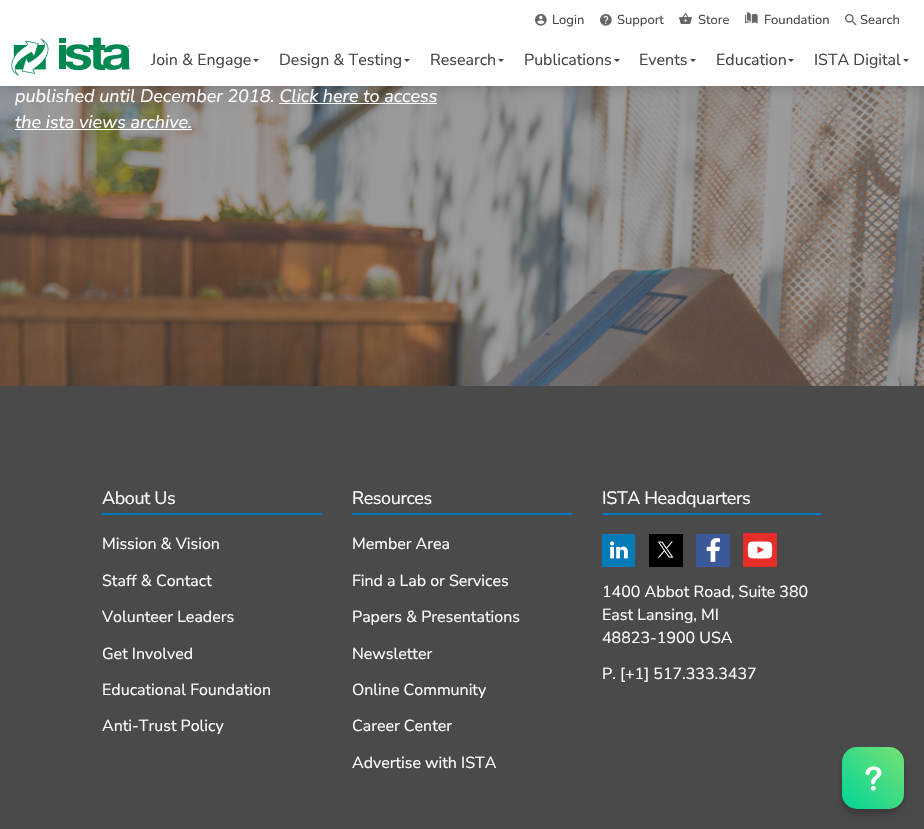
void draw(SkCanvas* canvas) {
	SkPaint paint;
	paint.setAntiAlias(true);
	auto spacedText = [&](const char* s, float x, float y, const SkFont& font, const SkPaint& ink, float letter, float word) {
		std::vector<SkGlyphID> glyphs(font.countText(s, strlen(s), SkTextEncoding::kUTF8));
		std::vector<float> xs(glyphs.size());
		font.textToGlyphs(s, strlen(s), SkTextEncoding::kUTF8, glyphs);
		font.getXPos(glyphs, xs, x);
		float extra = 0;
		for (size_t i = 0; i < glyphs.size(); i++) {
			xs[i] += extra;
			extra += letter + word * (glyphs[i] == font.unicharToGlyph(' '));
		}
		canvas->drawTextBlob(SkTextBlob::MakeFromPosHGlyphs(glyphs, xs, y, font), 0, 0, ink);
	};
	auto svgPath = [&](const char* data, bool evenOdd = false) {
		SkPath result = *SkParsePath::FromSVGString(data);
		if (evenOdd) result.setFillType(SkPathFillType::kEvenOdd);
		return result;
	};
	canvas->clear(0xff4a4a4a);
	canvas->drawImageRect(SkImages::DeferredFromEncodedData(SkData::MakeFromFileName("img7.png")), SkRect::MakeXYWH(0, 86, 924, 300), SkSamplingOptions());
	paint.setColor(0xffffffff);
	canvas->drawRect(SkRect::MakeXYWH(279, 103, 158, 1), paint);
	paint.setColor(0x33000000);
	paint.setMaskFilter(SkMaskFilter::MakeBlur(kNormal_SkBlurStyle, 7));
	canvas->drawRect(SkRect::MakeXYWH(2, 5, 920, 82), paint);
	paint.setMaskFilter(nullptr);
	paint.setColor(0xffffffff);
	canvas->drawRect(SkRect::MakeXYWH(0, 0, 924, 86), paint);
	canvas->drawImageRect(SkImages::DeferredFromEncodedData(SkData::MakeFromFileName("img1.png")), SkRect::MakeXYWH(535, 14, 12, 12), SkSamplingOptions());
	SkFont f1(fontMgr->matchFamilyStyle("Nunito Sans", SkFontStyle::Normal()), 13);
	f1.setSubpixel(true);
	paint.setColor(0xff444444);
	canvas->drawString("Login", 552, 24, f1, paint);
	canvas->drawImageRect(SkImages::DeferredFromEncodedData(SkData::MakeFromFileName("img2.png")), SkRect::MakeXYWH(600, 14, 12, 12), SkSamplingOptions());
	canvas->drawString("Support", 617, 24, f1, paint);
	canvas->drawImageRect(SkImages::DeferredFromEncodedData(SkData::MakeFromFileName("img3.png")), SkRect::MakeXYWH(679, 13, 13, 11), SkSamplingOptions());
	canvas->drawString("Store", 698, 24, f1, paint);
	canvas->drawImageRect(SkImages::DeferredFromEncodedData(SkData::MakeFromFileName("img4.png")), SkRect::MakeXYWH(745, 12, 13, 12), SkSamplingOptions());
	canvas->drawString("Foundation", 764, 24, f1, paint);
	canvas->drawImageRect(SkImages::DeferredFromEncodedData(SkData::MakeFromFileName("img5.png")), SkRect::MakeXYWH(845, 14, 12, 11), SkSamplingOptions());
	canvas->save();
	canvas->clipRect(SkRect::MakeXYWH(860, 11, 39, 18));
	canvas->drawString("Search", 860, 24, f1, paint);
	canvas->restore();
	canvas->drawImageRect(SkImages::DeferredFromEncodedData(SkData::MakeFromFileName("img6.png")), SkRect::MakeXYWH(11, 37, 120, 39), SkSamplingOptions());
	SkFont f2(fontMgr->matchFamilyStyle("Nunito Sans", SkFontStyle::Normal()), 16);
	f2.setSubpixel(true);
	canvas->drawString("Join & Engage", 151, 65, f2, paint);
	canvas->drawPath(svgPath("M253 59H259L256 62Z"), paint);
	canvas->drawString("Design & Testing", 279, 65, f2, paint);
	canvas->drawPath(svgPath("M404 59H410L407 62Z"), paint);
	canvas->drawString("Research", 430, 65, f2, paint);
	canvas->drawPath(svgPath("M498 59H504L501 62Z"), paint);
	canvas->drawString("Publications", 524, 65, f2, paint);
	canvas->drawPath(svgPath("M614 59H620L617 62Z"), paint);
	canvas->drawString("Events", 639, 65, f2, paint);
	canvas->drawPath(svgPath("M690 59H696L693 62Z"), paint);
	canvas->drawString("Education", 716, 65, f2, paint);
	canvas->drawPath(svgPath("M788 59H794L791 62Z"), paint);
	canvas->drawString("ISTA Digital", 814, 65, f2, paint);
	canvas->drawPath(svgPath("M903 59H909L906 62Z"), paint);
	SkFont f3(fontMgr->matchFamilyStyle("Nunito Sans", SkFontStyle::Italic()), 18);
	f3.setSubpixel(true);
	paint.setColor(0xffffffff);
	canvas->drawString("published until December 2018. Click here to access", 15, 102, f3, paint);
	canvas->drawString("the ista views archive.", 15, 128, f3, paint);
	canvas->drawRect(SkRect::MakeXYWH(15, 129, 177, 1), paint);
	paint.setColor(0xff0078c1);
	canvas->drawRect(SkRect::MakeXYWH(102, 513, 220, 2), paint);
	SkFont f4(fontMgr->matchFamilyStyle("Nunito Sans", SkFontStyle::Normal()), 18);
	f4.setSubpixel(true);
	paint.setColor(0xffffffff);
	spacedText("About Us", 102, 504, f4, paint, -0.4, 0);
	canvas->drawString("Mission & Vision", 102, 549, f2, paint);
	canvas->drawString("Staff & Contact", 102, 586, f2, paint);
	canvas->drawString("Volunteer Leaders", 102, 622, f2, paint);
	canvas->drawString("Get Involved", 102, 659, f2, paint);
	canvas->drawString("Educational Foundation", 102, 695, f2, paint);
	canvas->drawString("Anti-Trust Policy", 102, 731, f2, paint);
	paint.setColor(0xff0078c1);
	canvas->drawRect(SkRect::MakeXYWH(352, 513, 220, 2), paint);
	paint.setColor(0xffffffff);
	spacedText("Resources", 352, 504, f4, paint, -0.4, 0);
	canvas->drawString("Member Area", 352, 549, f2, paint);
	canvas->drawString("Find a Lab or Services", 352, 586, f2, paint);
	canvas->drawString("Papers & Presentations", 352, 622, f2, paint);
	canvas->drawString("Newsletter", 352, 659, f2, paint);
	canvas->drawString("Online Community", 352, 695, f2, paint);
	canvas->drawString("Career Center", 352, 731, f2, paint);
	canvas->drawString("Advertise with ISTA", 352, 768, f2, paint);
	paint.setColor(0xff0078c1);
	canvas->drawRect(SkRect::MakeXYWH(602, 513, 220, 2), paint);
	paint.setColor(0xffffffff);
	spacedText("ISTA Headquarters", 602, 504, f4, paint, -0.4, 0);
	canvas->drawImageRect(SkImages::DeferredFromEncodedData(SkData::MakeFromFileName("img8.png")), SkRect::MakeXYWH(602, 534, 33, 33), SkSamplingOptions());
	canvas->drawImageRect(SkImages::DeferredFromEncodedData(SkData::MakeFromFileName("img9.png")), SkRect::MakeXYWH(649, 534, 34, 33), SkSamplingOptions());
	canvas->drawImageRect(SkImages::DeferredFromEncodedData(SkData::MakeFromFileName("img10.png")), SkRect::MakeXYWH(696, 534, 34, 33), SkSamplingOptions());
	canvas->drawImageRect(SkImages::DeferredFromEncodedData(SkData::MakeFromFileName("img11.png")), SkRect::MakeXYWH(743, 533, 34, 34), SkSamplingOptions());
	canvas->drawString("1400 Abbot Road, Suite 380", 602, 597, f2, paint);
	canvas->drawString("East Lansing, MI", 602, 620, f2, paint);
	canvas->drawString("48823-1900 USA", 602, 643, f2, paint);
	canvas->drawString("P. [+1] 517.333.3437", 602, 679, f2, paint);
	paint.setColor(0x3d000000);
	paint.setMaskFilter(SkMaskFilter::MakeBlur(kNormal_SkBlurStyle, 3.5));
	canvas->drawRoundRect(SkRect::MakeXYWH(842, 752, 62, 62), 15, 15, paint);
	paint.setMaskFilter(nullptr);
	{
		const SkColor colors[] = {0xff00d598, 0xff77e173};
		const float stops[] = {0, 1};
		const SkPoint ends[] = {{842, 809}, {904, 747}};
		paint.setShader(SkGradientShader::MakeLinear(ends, colors, stops, 2, SkTileMode::kClamp));
		paint.setAlpha(255);
	}
	canvas->drawRoundRect(SkRect::MakeXYWH(842, 747, 62, 62), 15, 15, paint);
	canvas->drawImageRect(SkImages::DeferredFromEncodedData(SkData::MakeFromFileName("img12.png")), SkRect::MakeXYWH(865, 766, 17, 25), SkSamplingOptions());
}
